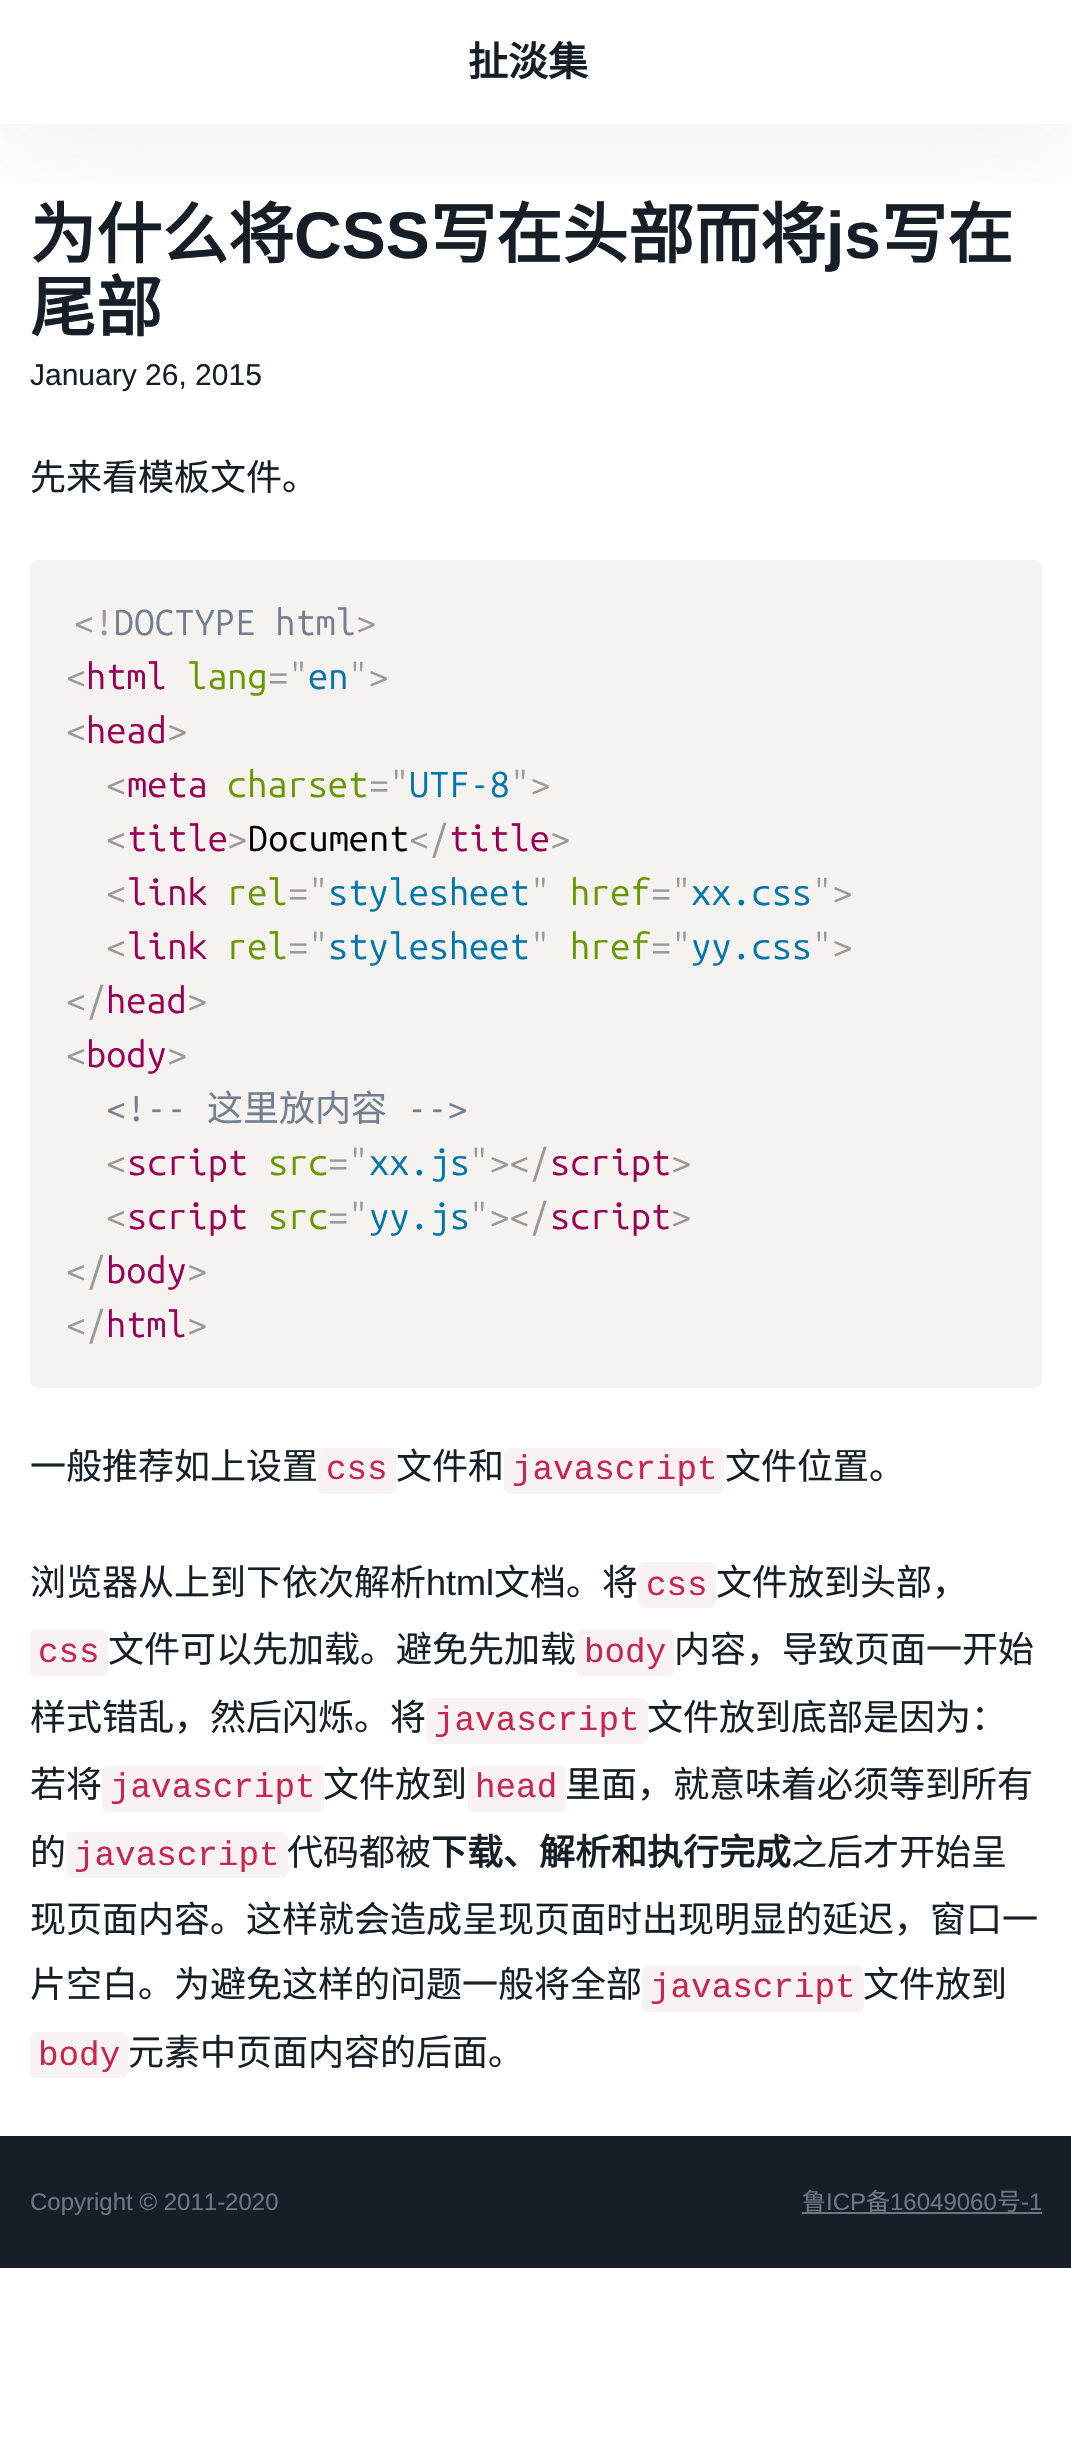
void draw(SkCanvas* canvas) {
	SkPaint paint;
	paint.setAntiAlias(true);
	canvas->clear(0xffffffff);
	canvas->save();
	canvas->clipRect(SkRect::MakeXYWH(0, 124, 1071, 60));
	paint.setColor(0x1a113a5d);
	paint.setMaskFilter(SkMaskFilter::MakeBlur(kNormal_SkBlurStyle, 60));
	canvas->drawRect(SkRect::MakeXYWH(0, 10, 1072, 124), paint);
	paint.setMaskFilter(nullptr);
	canvas->restore();
	SkFont f1(fontMgr->matchFamilyStyle("Noto Sans CJK SC", SkFontStyle::Bold()), 40);
	f1.setSubpixel(true);
	paint.setColor(0xff161e27);
	canvas->drawString("扯淡集", 468, 76, f1, paint);
	SkFont f2(fontMgr->matchFamilyStyle("Noto Sans CJK SC", SkFontStyle::Bold()), 66);
	f2.setSubpixel(true);
	canvas->drawString("为什么将", 30, 258, f2, paint);
	SkFont f3(fontMgr->matchFamilyStyle("Liberation Sans", SkFontStyle::Bold()), 66);
	f3.setSubpixel(true);
	canvas->drawString("CSS", 294, 258, f3, paint);
	canvas->drawString("写在头部而将", 430, 258, f2, paint);
	canvas->drawString("js", 826, 258, f3, paint);
	canvas->drawString("写在", 881, 258, f2, paint);
	canvas->drawString("尾部", 30, 331, f2, paint);
	SkFont f4(fontMgr->matchFamilyStyle("Liberation Sans", SkFontStyle::Normal()), 30);
	f4.setSubpixel(true);
	canvas->drawString("January 26, 2015", 30, 385, f4, paint);
	SkFont f5(fontMgr->matchFamilyStyle("Noto Sans CJK SC", SkFontStyle::Normal()), 36);
	f5.setSubpixel(true);
	canvas->drawString("先来看模板文件。", 30, 490, f5, paint);
	paint.setColor(0xfff5f2f0);
	canvas->drawRoundRect(SkRect::MakeXYWH(30, 560, 1012, 828), 8, 8, paint);
	SkFont f6(fontMgr->matchFamilyStyle("Ubuntu Mono", SkFontStyle::Normal()), 36);
	f6.setSubpixel(true);
	paint.setColor(0xff999999);
	canvas->drawString("<!", 74, 635, f6, paint);
	paint.setColor(0xff708090);
	canvas->drawString("DOCTYPE html", 114, 635, f6, paint);
	paint.setColor(0xff999999);
	canvas->drawString(">", 356, 635, f6, paint);
	canvas->drawString("<", 66, 689, f6, paint);
	paint.setColor(0xff990055);
	canvas->drawString("html", 86, 689, f6, paint);
	paint.setColor(0xff669900);
	canvas->drawString("lang", 187, 689, f6, paint);
	paint.setColor(0xff999999);
	canvas->drawString("=\"", 268, 689, f6, paint);
	paint.setColor(0xff0077aa);
	canvas->drawString("en", 308, 689, f6, paint);
	paint.setColor(0xff999999);
	canvas->drawString("\">", 348, 689, f6, paint);
	canvas->drawString("<", 66, 743, f6, paint);
	paint.setColor(0xff990055);
	canvas->drawString("head", 86, 743, f6, paint);
	paint.setColor(0xff999999);
	canvas->drawString(">", 167, 743, f6, paint);
	canvas->drawString("<", 106, 797, f6, paint);
	paint.setColor(0xff990055);
	canvas->drawString("meta", 127, 797, f6, paint);
	paint.setColor(0xff669900);
	canvas->drawString("charset", 227, 797, f6, paint);
	paint.setColor(0xff999999);
	canvas->drawString("=\"", 369, 797, f6, paint);
	paint.setColor(0xff0077aa);
	canvas->drawString("UTF-8", 409, 797, f6, paint);
	paint.setColor(0xff999999);
	canvas->drawString("\">", 510, 797, f6, paint);
	canvas->drawString("<", 106, 851, f6, paint);
	paint.setColor(0xff990055);
	canvas->drawString("title", 127, 851, f6, paint);
	paint.setColor(0xff999999);
	canvas->drawString(">", 227, 851, f6, paint);
	paint.setColor(0xff000000);
	canvas->drawString("Document", 248, 851, f6, paint);
	paint.setColor(0xff999999);
	canvas->drawString("</", 409, 851, f6, paint);
	paint.setColor(0xff990055);
	canvas->drawString("title", 449, 851, f6, paint);
	paint.setColor(0xff999999);
	canvas->drawString(">", 550, 851, f6, paint);
	canvas->drawString("<", 106, 905, f6, paint);
	paint.setColor(0xff990055);
	canvas->drawString("link", 127, 905, f6, paint);
	paint.setColor(0xff669900);
	canvas->drawString("rel", 227, 905, f6, paint);
	paint.setColor(0xff999999);
	canvas->drawString("=\"", 288, 905, f6, paint);
	paint.setColor(0xff0077aa);
	canvas->drawString("stylesheet", 328, 905, f6, paint);
	paint.setColor(0xff999999);
	canvas->drawString("\"", 530, 905, f6, paint);
	paint.setColor(0xff669900);
	canvas->drawString("href", 570, 905, f6, paint);
	paint.setColor(0xff999999);
	canvas->drawString("=\"", 651, 905, f6, paint);
	paint.setColor(0xff0077aa);
	canvas->drawString("xx.css", 691, 905, f6, paint);
	paint.setColor(0xff999999);
	canvas->drawString("\">", 812, 905, f6, paint);
	canvas->drawString("<", 106, 959, f6, paint);
	paint.setColor(0xff990055);
	canvas->drawString("link", 127, 959, f6, paint);
	paint.setColor(0xff669900);
	canvas->drawString("rel", 227, 959, f6, paint);
	paint.setColor(0xff999999);
	canvas->drawString("=\"", 288, 959, f6, paint);
	paint.setColor(0xff0077aa);
	canvas->drawString("stylesheet", 328, 959, f6, paint);
	paint.setColor(0xff999999);
	canvas->drawString("\"", 530, 959, f6, paint);
	paint.setColor(0xff669900);
	canvas->drawString("href", 570, 959, f6, paint);
	paint.setColor(0xff999999);
	canvas->drawString("=\"", 651, 959, f6, paint);
	paint.setColor(0xff0077aa);
	canvas->drawString("yy.css", 691, 959, f6, paint);
	paint.setColor(0xff999999);
	canvas->drawString("\">", 812, 959, f6, paint);
	canvas->drawString("</", 66, 1013, f6, paint);
	paint.setColor(0xff990055);
	canvas->drawString("head", 106, 1013, f6, paint);
	paint.setColor(0xff999999);
	canvas->drawString(">", 187, 1013, f6, paint);
	canvas->drawString("<", 66, 1067, f6, paint);
	paint.setColor(0xff990055);
	canvas->drawString("body", 86, 1067, f6, paint);
	paint.setColor(0xff999999);
	canvas->drawString(">", 167, 1067, f6, paint);
	paint.setColor(0xff708090);
	canvas->drawString("<!--", 106, 1121, f6, paint);
	canvas->drawString("这里放内容", 207, 1121, f5, paint);
	canvas->drawString("-->", 407, 1121, f6, paint);
	paint.setColor(0xff999999);
	canvas->drawString("<", 106, 1175, f6, paint);
	paint.setColor(0xff990055);
	canvas->drawString("script", 127, 1175, f6, paint);
	paint.setColor(0xff669900);
	canvas->drawString("src", 268, 1175, f6, paint);
	paint.setColor(0xff999999);
	canvas->drawString("=\"", 328, 1175, f6, paint);
	paint.setColor(0xff0077aa);
	canvas->drawString("xx.js", 369, 1175, f6, paint);
	paint.setColor(0xff999999);
	canvas->drawString("\"></", 469, 1175, f6, paint);
	paint.setColor(0xff990055);
	canvas->drawString("script", 550, 1175, f6, paint);
	paint.setColor(0xff999999);
	canvas->drawString(">", 671, 1175, f6, paint);
	canvas->drawString("<", 106, 1229, f6, paint);
	paint.setColor(0xff990055);
	canvas->drawString("script", 127, 1229, f6, paint);
	paint.setColor(0xff669900);
	canvas->drawString("src", 268, 1229, f6, paint);
	paint.setColor(0xff999999);
	canvas->drawString("=\"", 328, 1229, f6, paint);
	paint.setColor(0xff0077aa);
	canvas->drawString("yy.js", 369, 1229, f6, paint);
	paint.setColor(0xff999999);
	canvas->drawString("\"></", 469, 1229, f6, paint);
	paint.setColor(0xff990055);
	canvas->drawString("script", 550, 1229, f6, paint);
	paint.setColor(0xff999999);
	canvas->drawString(">", 671, 1229, f6, paint);
	canvas->drawString("</", 66, 1283, f6, paint);
	paint.setColor(0xff990055);
	canvas->drawString("body", 106, 1283, f6, paint);
	paint.setColor(0xff999999);
	canvas->drawString(">", 187, 1283, f6, paint);
	canvas->drawString("</", 66, 1337, f6, paint);
	paint.setColor(0xff990055);
	canvas->drawString("html", 106, 1337, f6, paint);
	paint.setColor(0xff999999);
	canvas->drawString(">", 187, 1337, f6, paint);
	paint.setColor(0xff161e27);
	canvas->drawString("一般推荐如上设置", 30, 1479, f5, paint);
	paint.setColor(0xfff9f2f4);
	canvas->drawRoundRect(SkRect::MakeXYWH(318, 1448, 78, 46), 6, 6, paint);
	SkFont f7(fontMgr->matchFamilyStyle("Liberation Mono", SkFontStyle::Normal()), 34.25);
	f7.setSubpixel(true);
	paint.setColor(0xffc7264e);
	canvas->drawString("css", 326, 1479, f7, paint);
	paint.setColor(0xff161e27);
	canvas->drawString("文件和", 396, 1479, f5, paint);
	paint.setColor(0xfff9f2f4);
	canvas->drawRoundRect(SkRect::MakeXYWH(504, 1448, 220, 46), 6, 6, paint);
	paint.setColor(0xffc7264e);
	canvas->drawString("javascript", 512, 1479, f7, paint);
	paint.setColor(0xff161e27);
	canvas->drawString("文件位置。", 725, 1479, f5, paint);
	canvas->drawString("浏览器从上到下依次解析", 30, 1595, f5, paint);
	SkFont f8(fontMgr->matchFamilyStyle("Liberation Sans", SkFontStyle::Normal()), 36);
	f8.setSubpixel(true);
	canvas->drawString("html", 426, 1595, f8, paint);
	canvas->drawString("文档。将", 494, 1595, f5, paint);
	paint.setColor(0xfff9f2f4);
	canvas->drawRoundRect(SkRect::MakeXYWH(638, 1562, 78, 46), 6, 6, paint);
	paint.setColor(0xffc7264e);
	canvas->drawString("css", 646, 1595, f7, paint);
	paint.setColor(0xff161e27);
	canvas->drawString("文件放到头部，", 716, 1595, f5, paint);
	paint.setColor(0xfff9f2f4);
	canvas->drawRoundRect(SkRect::MakeXYWH(30, 1630, 78, 46), 6, 6, paint);
	paint.setColor(0xffc7264e);
	canvas->drawString("css", 38, 1662, f7, paint);
	paint.setColor(0xff161e27);
	canvas->drawString("文件可以先加载。避免先加载", 108, 1662, f5, paint);
	paint.setColor(0xfff9f2f4);
	canvas->drawRoundRect(SkRect::MakeXYWH(576, 1630, 98, 46), 6, 6, paint);
	paint.setColor(0xffc7264e);
	canvas->drawString("body", 584, 1662, f7, paint);
	paint.setColor(0xff161e27);
	canvas->drawString("内容，导致页面一开始", 674, 1662, f5, paint);
	canvas->drawString("样式错乱，然后闪烁。将", 30, 1730, f5, paint);
	paint.setColor(0xfff9f2f4);
	canvas->drawRoundRect(SkRect::MakeXYWH(426, 1698, 222, 46), 6, 6, paint);
	paint.setColor(0xffc7264e);
	canvas->drawString("javascript", 434, 1730, f7, paint);
	paint.setColor(0xff161e27);
	canvas->drawString("文件放到底部是因为：", 647, 1730, f5, paint);
	canvas->drawString("若将", 30, 1797, f5, paint);
	paint.setColor(0xfff9f2f4);
	canvas->drawRoundRect(SkRect::MakeXYWH(102, 1766, 222, 46), 6, 6, paint);
	paint.setColor(0xffc7264e);
	canvas->drawString("javascript", 110, 1797, f7, paint);
	paint.setColor(0xff161e27);
	canvas->drawString("文件放到", 323, 1797, f5, paint);
	paint.setColor(0xfff9f2f4);
	canvas->drawRoundRect(SkRect::MakeXYWH(468, 1766, 98, 46), 6, 6, paint);
	paint.setColor(0xffc7264e);
	canvas->drawString("head", 475, 1797, f7, paint);
	paint.setColor(0xff161e27);
	canvas->drawString("里面，就意味着必须等到所有", 565, 1797, f5, paint);
	canvas->drawString("的", 30, 1865, f5, paint);
	paint.setColor(0xfff9f2f4);
	canvas->drawRoundRect(SkRect::MakeXYWH(66, 1832, 222, 46), 6, 6, paint);
	paint.setColor(0xffc7264e);
	canvas->drawString("javascript", 74, 1865, f7, paint);
	paint.setColor(0xff161e27);
	canvas->drawString("代码都被", 287, 1865, f5, paint);
	SkFont f9(fontMgr->matchFamilyStyle("Noto Sans CJK SC", SkFontStyle::Bold()), 36);
	f9.setSubpixel(true);
	canvas->drawString("下载、解析和执行完成", 431, 1865, f9, paint);
	canvas->drawString("之后才开始呈", 791, 1865, f5, paint);
	canvas->drawString("现页面内容。这样就会造成呈现页面时出现明显的延迟，窗口一", 30, 1932, f5, paint);
	canvas->drawString("片空白。为避免这样的问题一般将全部", 30, 1997, f5, paint);
	paint.setColor(0xfff9f2f4);
	canvas->drawRoundRect(SkRect::MakeXYWH(642, 1966, 222, 46), 6, 6, paint);
	paint.setColor(0xffc7264e);
	canvas->drawString("javascript", 650, 1997, f7, paint);
	paint.setColor(0xff161e27);
	canvas->drawString("文件放到", 863, 1997, f5, paint);
	paint.setColor(0xfff9f2f4);
	canvas->drawRoundRect(SkRect::MakeXYWH(30, 2032, 98, 46), 6, 6, paint);
	paint.setColor(0xffc7264e);
	canvas->drawString("body", 38, 2065, f7, paint);
	paint.setColor(0xff161e27);
	canvas->drawString("元素中页面内容的后面。", 128, 2065, f5, paint);
	canvas->drawRect(SkRect::MakeXYWH(0, 2136, 1071, 132), paint);
	SkFont f10(fontMgr->matchFamilyStyle("Liberation Sans", SkFontStyle::Normal()), 24);
	f10.setSubpixel(true);
	paint.setColor(0xff6d7685);
	canvas->drawString("Copyright © 2011-2020", 30, 2210, f10, paint);
	SkFont f11(fontMgr->matchFamilyStyle("Noto Sans CJK SC", SkFontStyle::Normal()), 24);
	f11.setSubpixel(true);
	canvas->drawString("鲁", 802, 2210, f11, paint);
	canvas->drawString("ICP", 826, 2210, f10, paint);
	canvas->drawRect(SkRect::MakeXYWH(802, 2212, 240, 2), paint);
	canvas->drawString("备", 866, 2210, f11, paint);
	canvas->drawString("16049060", 890, 2210, f10, paint);
	canvas->drawString("号", 997, 2210, f11, paint);
	canvas->drawString("-1", 1021, 2210, f10, paint);
}
